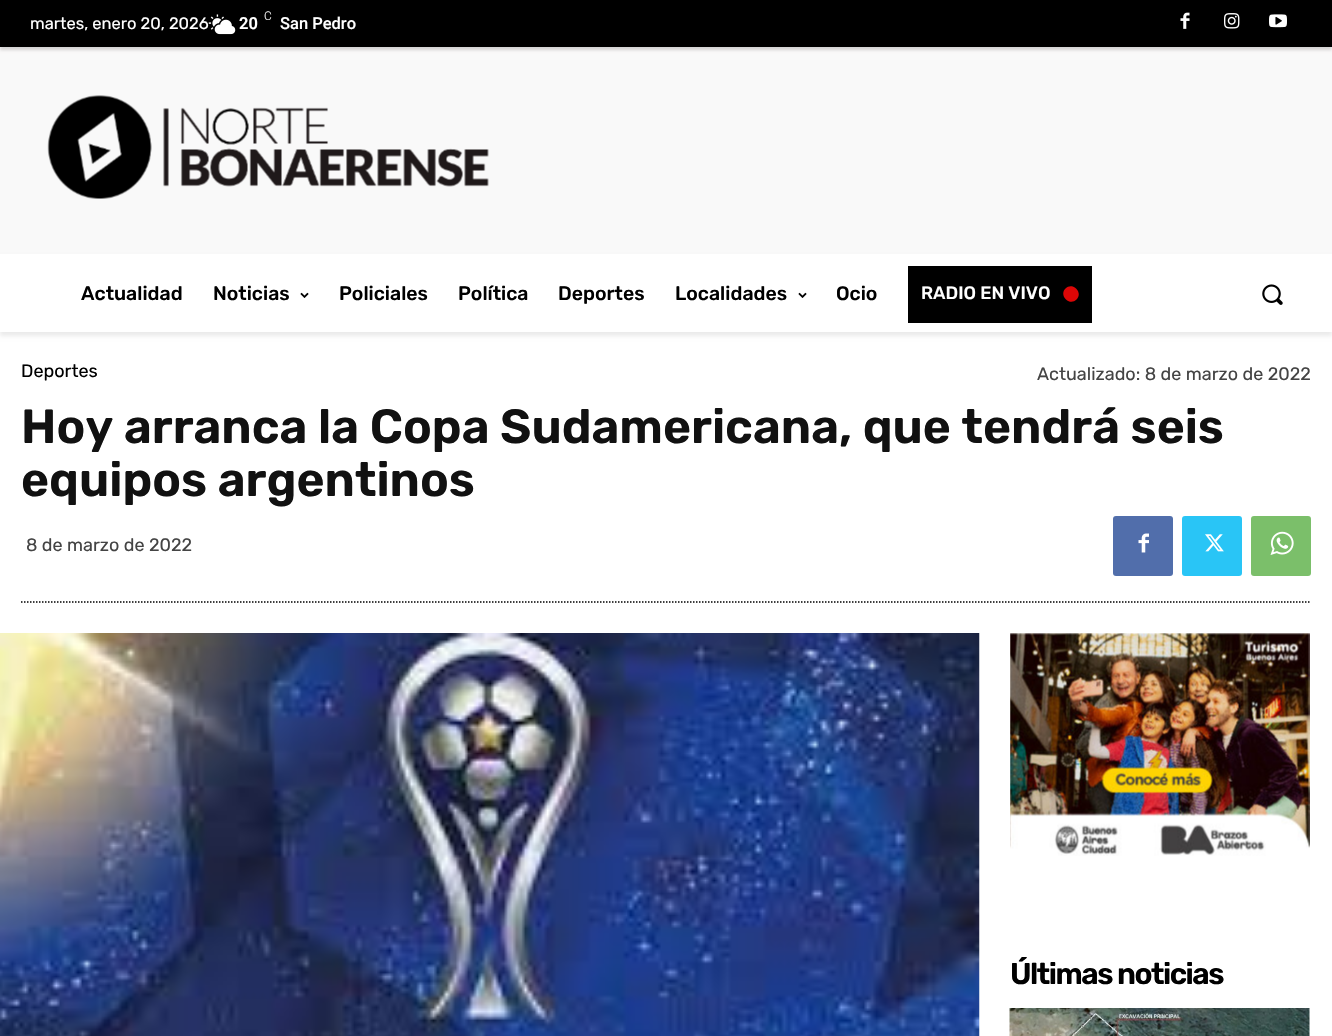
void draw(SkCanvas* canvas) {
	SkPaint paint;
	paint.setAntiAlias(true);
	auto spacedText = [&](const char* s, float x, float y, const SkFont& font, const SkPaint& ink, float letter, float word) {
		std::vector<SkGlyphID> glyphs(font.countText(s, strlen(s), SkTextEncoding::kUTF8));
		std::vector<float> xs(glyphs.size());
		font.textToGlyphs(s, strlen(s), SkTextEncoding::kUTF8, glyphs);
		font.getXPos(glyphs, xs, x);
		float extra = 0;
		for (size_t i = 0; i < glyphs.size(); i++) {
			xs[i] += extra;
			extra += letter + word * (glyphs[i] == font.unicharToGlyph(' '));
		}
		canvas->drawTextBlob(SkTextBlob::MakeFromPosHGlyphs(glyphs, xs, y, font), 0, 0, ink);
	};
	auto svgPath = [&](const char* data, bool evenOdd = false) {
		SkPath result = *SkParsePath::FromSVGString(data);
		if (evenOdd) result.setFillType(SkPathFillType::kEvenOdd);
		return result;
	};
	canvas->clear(0xffffffff);
	paint.setColor(0xff000000);
	canvas->drawRect(SkRect::MakeXYWH(0, 0, 1332, 47), paint);
	SkFont f1(fontMgr->matchFamilyStyle("Rubik", SkFontStyle::Normal()), 16.5);
	f1.setSubpixel(true);
	paint.setColor(0xffffffff);
	canvas->drawString("martes, enero 20, 2026", 30, 29, f1, paint);
	canvas->drawImageRect(SkImages::DeferredFromEncodedData(SkData::MakeFromFileName("img1.png")), SkRect::MakeXYWH(208, 14, 28, 21), SkSamplingOptions());
	canvas->drawImageRect(SkImages::DeferredFromEncodedData(SkData::MakeFromFileName("img2.png")), SkRect::MakeXYWH(1180, 12, 10, 17), SkSamplingOptions());
	canvas->drawImageRect(SkImages::DeferredFromEncodedData(SkData::MakeFromFileName("img3.png")), SkRect::MakeXYWH(1224, 13, 16, 16), SkSamplingOptions());
	canvas->drawImageRect(SkImages::DeferredFromEncodedData(SkData::MakeFromFileName("img4.png")), SkRect::MakeXYWH(1269, 14, 18, 14), SkSamplingOptions());
	paint.setColor(0xfff9f9f9);
	canvas->drawRect(SkRect::MakeXYWH(0, 47, 1332, 207), paint);
	canvas->save();
	canvas->clipPath(svgPath("M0 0H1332V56H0ZM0 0H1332V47H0Z", true), true);
	paint.setColor(0x260a0000);
	paint.setMaskFilter(SkMaskFilter::MakeBlur(kNormal_SkBlurStyle, 1.5));
	canvas->drawRect(SkRect::MakeXYWH(0, 3, 1332, 47), paint);
	paint.setMaskFilter(nullptr);
	canvas->restore();
	SkFont f2(fontMgr->matchFamilyStyle("Roboto", SkFontStyle(300, SkFontStyle::kNormal_Width, SkFontStyle::kUpright_Slant)), 12);
	f2.setSubpixel(true);
	paint.setColor(0xffffffff);
	canvas->drawString("C", 264, 20, f2, paint);
	SkFont f3(fontMgr->matchFamilyStyle("Roboto", SkFontStyle(600, SkFontStyle::kNormal_Width, SkFontStyle::kUpright_Slant)), 16.5);
	f3.setSubpixel(true);
	canvas->drawString("20", 239, 29, f3, paint);
	SkFont f4(fontMgr->matchFamilyStyle("Roboto", SkFontStyle(500, SkFontStyle::kNormal_Width, SkFontStyle::kUpright_Slant)), 16.5);
	f4.setSubpixel(true);
	canvas->drawString("San Pedro", 280, 29, f4, paint);
	canvas->drawImageRect(SkImages::DeferredFromEncodedData(SkData::MakeFromFileName("img5.png")), SkRect::MakeXYWH(47, 95, 442, 104), SkSamplingOptions());
	paint.setColor(0xff000000);
	canvas->drawRect(SkRect::MakeXYWH(908, 266, 184, 57), paint);
	paint.setColor(0xffdd0606);
	canvas->drawPath(svgPath("M1065.5 288.5C1072.5 281.5 1083.5 292.5 1076.5 299.5C1069.5 306.5 1058.5 295.5 1065.5 288.5Z"), paint);
	canvas->save();
	canvas->clipPath(svgPath("M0 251H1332V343H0ZM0 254H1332V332H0Z", true), true);
	paint.setColor(0x14000000);
	paint.setMaskFilter(SkMaskFilter::MakeBlur(kNormal_SkBlurStyle, 2));
	canvas->drawRect(SkRect::MakeXYWH(0, 258, 1332, 78), paint);
	paint.setMaskFilter(nullptr);
	canvas->restore();
	SkFont f5(fontMgr->matchFamilyStyle("Rubik", SkFontStyle(500, SkFontStyle::kNormal_Width, SkFontStyle::kUpright_Slant)), 19.5);
	f5.setSubpixel(true);
	paint.setColor(0xff000000);
	canvas->drawString("Actualidad", 81, 300, f5, paint);
	canvas->drawString("Noticias", 213, 300, f5, paint);
	canvas->drawImageRect(SkImages::DeferredFromEncodedData(SkData::MakeFromFileName("img6.png")), SkRect::MakeXYWH(300, 292, 9, 6), SkSamplingOptions());
	canvas->drawString("Policiales", 339, 300, f5, paint);
	canvas->drawString("Política", 458, 300, f5, paint);
	canvas->drawString("Deportes", 558, 300, f5, paint);
	canvas->drawString("Localidades", 675, 300, f5, paint);
	canvas->drawImageRect(SkImages::DeferredFromEncodedData(SkData::MakeFromFileName("img6.png")), SkRect::MakeXYWH(798, 292, 9, 6), SkSamplingOptions());
	canvas->drawString("Ocio", 836, 300, f5, paint);
	SkFont f6(fontMgr->matchFamilyStyle("Rubik", SkFontStyle(500, SkFontStyle::kNormal_Width, SkFontStyle::kUpright_Slant)), 18);
	f6.setSubpixel(true);
	paint.setColor(0xffffffff);
	canvas->drawString("RADIO EN VIVO", 921, 299, f6, paint);
	canvas->drawImageRect(SkImages::DeferredFromEncodedData(SkData::MakeFromFileName("img7.png")), SkRect::MakeXYWH(1262, 284, 21, 21), SkSamplingOptions());
	SkFont f7(fontMgr->matchFamilyStyle("Rubik", SkFontStyle::Normal()), 18);
	f7.setSubpixel(true);
	paint.setColor(0xff000000);
	canvas->drawString("Deportes", 21, 377, f7, paint);
	paint.setColor(0xff444444);
	canvas->drawString("Actualizado: 8 de marzo de 2022", 1037, 380, f7, paint);
	SkFont f8(fontMgr->matchFamilyStyle("Rubik", SkFontStyle(600, SkFontStyle::kNormal_Width, SkFontStyle::kUpright_Slant)), 48);
	f8.setSubpixel(true);
	paint.setColor(0xff111111);
	canvas->drawString("Hoy arranca la Copa Sudamericana, que tendrá seis", 21, 443, f8, paint);
	canvas->drawString("equipos argentinos", 21, 496, f8, paint);
	paint.setColor(0xff444444);
	canvas->drawString("8 de marzo de 2022", 26, 551, f7, paint);
	paint.setColor(0xff516eab);
	canvas->drawRoundRect(SkRect::MakeXYWH(1113, 516, 60, 60), 3, 3, paint);
	canvas->drawImageRect(SkImages::DeferredFromEncodedData(SkData::MakeFromFileName("img8.png")), SkRect::MakeXYWH(1138, 533, 11, 20), SkSamplingOptions());
	paint.setColor(0xff29c5f6);
	canvas->drawRoundRect(SkRect::MakeXYWH(1182, 516, 60, 60), 3, 3, paint);
	canvas->drawImageRect(SkImages::DeferredFromEncodedData(SkData::MakeFromFileName("img9.png")), SkRect::MakeXYWH(1205, 534, 19, 18), SkSamplingOptions());
	paint.setColor(0xff7bbf6a);
	canvas->drawRoundRect(SkRect::MakeXYWH(1251, 516, 60, 60), 3, 3, paint);
	canvas->drawImageRect(SkImages::DeferredFromEncodedData(SkData::MakeFromFileName("img10.png")), SkRect::MakeXYWH(1270, 531, 24, 24), SkSamplingOptions());
	paint.setStroke(true);
	paint.setStrokeWidth(1.5);
	paint.setColor(0xff000000);
	paint.setPathEffect(SkDashPathEffect::Make({{1.5f, 1.5f}}, 0));
	canvas->drawPath(svgPath("M21 602H1311"), paint);
	paint.setPathEffect(nullptr);
	canvas->drawImageRect(SkImages::DeferredFromEncodedData(SkData::MakeFromFileName("img11.png")), SkRect::MakeXYWH(0, 633, 980, 403), SkSamplingOptions());
	canvas->drawImageRect(SkImages::DeferredFromEncodedData(SkData::MakeFromFileName("img12.png")), SkRect::MakeXYWH(1010, 633, 300, 223), SkSamplingOptions());
	SkFont f9(fontMgr->matchFamilyStyle("Rubik", SkFontStyle(600, SkFontStyle::kNormal_Width, SkFontStyle::kUpright_Slant)), 30);
	f9.setSubpixel(true);
	paint.setStroke(false);
	spacedText("Últimas noticias", 1010, 984, f9, paint, -1.5, 0);
	canvas->drawImageRect(SkImages::DeferredFromEncodedData(SkData::MakeFromFileName("img13.png")), SkRect::MakeXYWH(1009, 1008, 301, 28), SkSamplingOptions());
}
